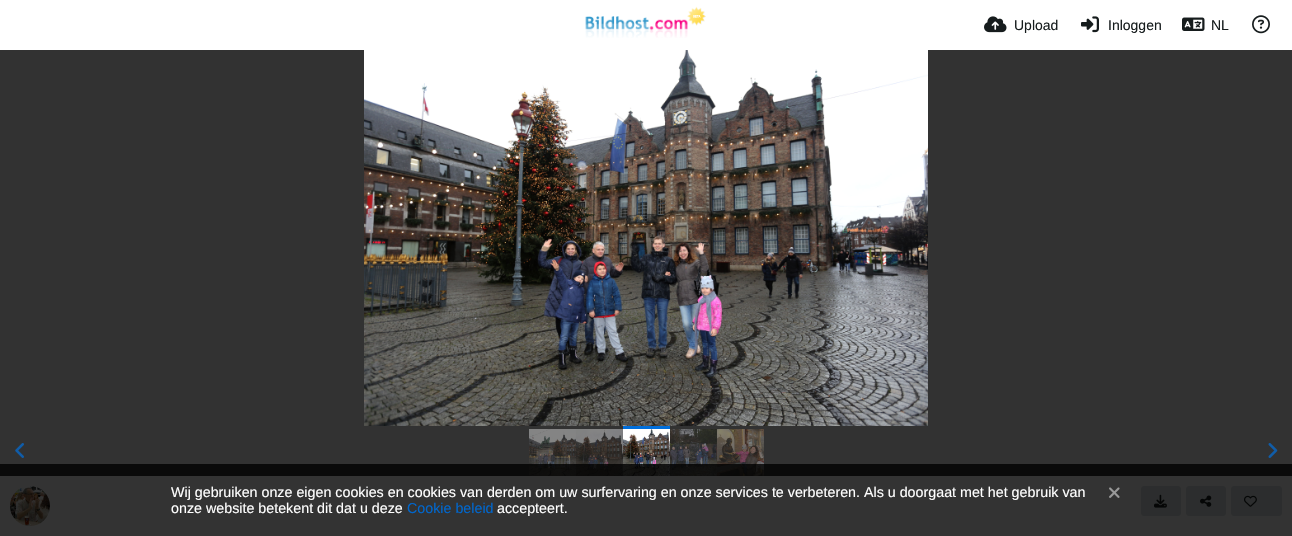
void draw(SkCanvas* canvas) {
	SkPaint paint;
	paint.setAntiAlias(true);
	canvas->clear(0xffffffff);
	canvas->drawImageRect(SkImages::DeferredFromEncodedData(SkData::MakeFromFileName("img1.png")), SkRect::MakeXYWH(585, 6, 121, 32), SkSamplingOptions());
	canvas->drawImageRect(SkImages::DeferredFromEncodedData(SkData::MakeFromFileName("img2.png")), SkRect::MakeXYWH(984, 16, 23, 17), SkSamplingOptions());
	SkFont f1(fontMgr->matchFamilyStyle("Liberation Sans", SkFontStyle::Normal()), 14);
	f1.setSubpixel(true);
	paint.setColor(0xff161c1d);
	canvas->drawString("Upload", 1014, 30, f1, paint);
	canvas->drawImageRect(SkImages::DeferredFromEncodedData(SkData::MakeFromFileName("img3.png")), SkRect::MakeXYWH(1081, 16, 18, 17), SkSamplingOptions());
	canvas->drawString("Inloggen", 1108, 30, f1, paint);
	canvas->drawImageRect(SkImages::DeferredFromEncodedData(SkData::MakeFromFileName("img4.png")), SkRect::MakeXYWH(1182, 17, 23, 14), SkSamplingOptions());
	canvas->drawString("NL", 1211, 30, f1, paint);
	canvas->drawImageRect(SkImages::DeferredFromEncodedData(SkData::MakeFromFileName("img5.png")), SkRect::MakeXYWH(1252, 15, 18, 19), SkSamplingOptions());
	paint.setColor(0xff323232);
	canvas->drawRect(SkRect::MakeXYWH(0, 50, 1292, 426), paint);
	canvas->drawImageRect(SkImages::DeferredFromEncodedData(SkData::MakeFromFileName("img6.png")), SkRect::MakeXYWH(529, 429, 47, 47), SkSamplingOptions());
	canvas->drawImageRect(SkImages::DeferredFromEncodedData(SkData::MakeFromFileName("img7.png")), SkRect::MakeXYWH(576, 429, 47, 47), SkSamplingOptions());
	paint.setColor(0xff006edb);
	canvas->drawRect(SkRect::MakeXYWH(623, 426, 47, 3), paint);
	canvas->drawImageRect(SkImages::DeferredFromEncodedData(SkData::MakeFromFileName("img8.png")), SkRect::MakeXYWH(623, 429, 47, 47), SkSamplingOptions());
	canvas->drawImageRect(SkImages::DeferredFromEncodedData(SkData::MakeFromFileName("img9.png")), SkRect::MakeXYWH(670, 429, 47, 47), SkSamplingOptions());
	canvas->drawImageRect(SkImages::DeferredFromEncodedData(SkData::MakeFromFileName("img10.png")), SkRect::MakeXYWH(717, 429, 47, 47), SkSamplingOptions());
	canvas->drawImageRect(SkImages::DeferredFromEncodedData(SkData::MakeFromFileName("img11.png")), SkRect::MakeXYWH(15, 443, 9, 15), SkSamplingOptions());
	canvas->drawImageRect(SkImages::DeferredFromEncodedData(SkData::MakeFromFileName("img12.png")), SkRect::MakeXYWH(1268, 443, 10, 15), SkSamplingOptions());
	canvas->drawImageRect(SkImages::DeferredFromEncodedData(SkData::MakeFromFileName("img13.png")), SkRect::MakeXYWH(364, 50, 564, 376), SkSamplingOptions());
	canvas->drawImageRect(SkImages::DeferredFromEncodedData(SkData::MakeFromFileName("img14.png")), SkRect::MakeXYWH(10, 486, 40, 40), SkSamplingOptions());
	paint.setColor(0xffd9e1e2);
	canvas->drawRoundRect(SkRect::MakeXYWH(1141.5, 486.5, 39, 29), 2.5, 2.5, paint);
	paint.setStroke(true);
	paint.setStrokeWidth(1);
	canvas->drawRoundRect(SkRect::MakeXYWH(1141.5, 486.5, 39, 29), 2.5, 2.5, paint);
	canvas->drawImageRect(SkImages::DeferredFromEncodedData(SkData::MakeFromFileName("img15.png")), SkRect::MakeXYWH(1154, 494, 13, 14), SkSamplingOptions());
	paint.setStroke(false);
	canvas->drawRoundRect(SkRect::MakeXYWH(1186.5, 486.5, 39, 29), 2.5, 2.5, paint);
	paint.setStroke(true);
	canvas->drawRoundRect(SkRect::MakeXYWH(1186.5, 486.5, 39, 29), 2.5, 2.5, paint);
	canvas->drawImageRect(SkImages::DeferredFromEncodedData(SkData::MakeFromFileName("img16.png")), SkRect::MakeXYWH(1200, 495, 12, 12), SkSamplingOptions());
	paint.setStroke(false);
	canvas->drawRoundRect(SkRect::MakeXYWH(1231.5, 486.5, 50, 29), 2.5, 2.5, paint);
	paint.setStroke(true);
	canvas->drawRoundRect(SkRect::MakeXYWH(1231.5, 486.5, 50, 29), 2.5, 2.5, paint);
	canvas->drawImageRect(SkImages::DeferredFromEncodedData(SkData::MakeFromFileName("img17.png")), SkRect::MakeXYWH(1244, 495, 13, 12), SkSamplingOptions());
	paint.setStroke(false);
	paint.setColor(0xcc000000);
	canvas->drawRect(SkRect::MakeXYWH(0, 464, 1292, 72), paint);
	SkFont f2(fontMgr->matchFamilyStyle("Liberation Sans", SkFontStyle::Normal()), 14.28);
	f2.setSubpixel(true);
	paint.setColor(0xffffffff);
	canvas->drawString("Wij gebruiken onze eigen cookies en cookies van derden om uw surfervaring en onze services te verbeteren. Als u doorgaat met het gebruik van", 171, 497, f2, paint);
	canvas->drawString("onze website betekent dit dat u deze", 171, 513, f2, paint);
	paint.setColor(0xff0066cc);
	canvas->drawString("Cookie beleid", 407, 513, f2, paint);
	paint.setColor(0xffffffff);
	canvas->drawString("accepteert.", 497, 513, f2, paint);
	canvas->drawImageRect(SkImages::DeferredFromEncodedData(SkData::MakeFromFileName("img18.png")), SkRect::MakeXYWH(1109, 487, 11, 11), SkSamplingOptions());
}
